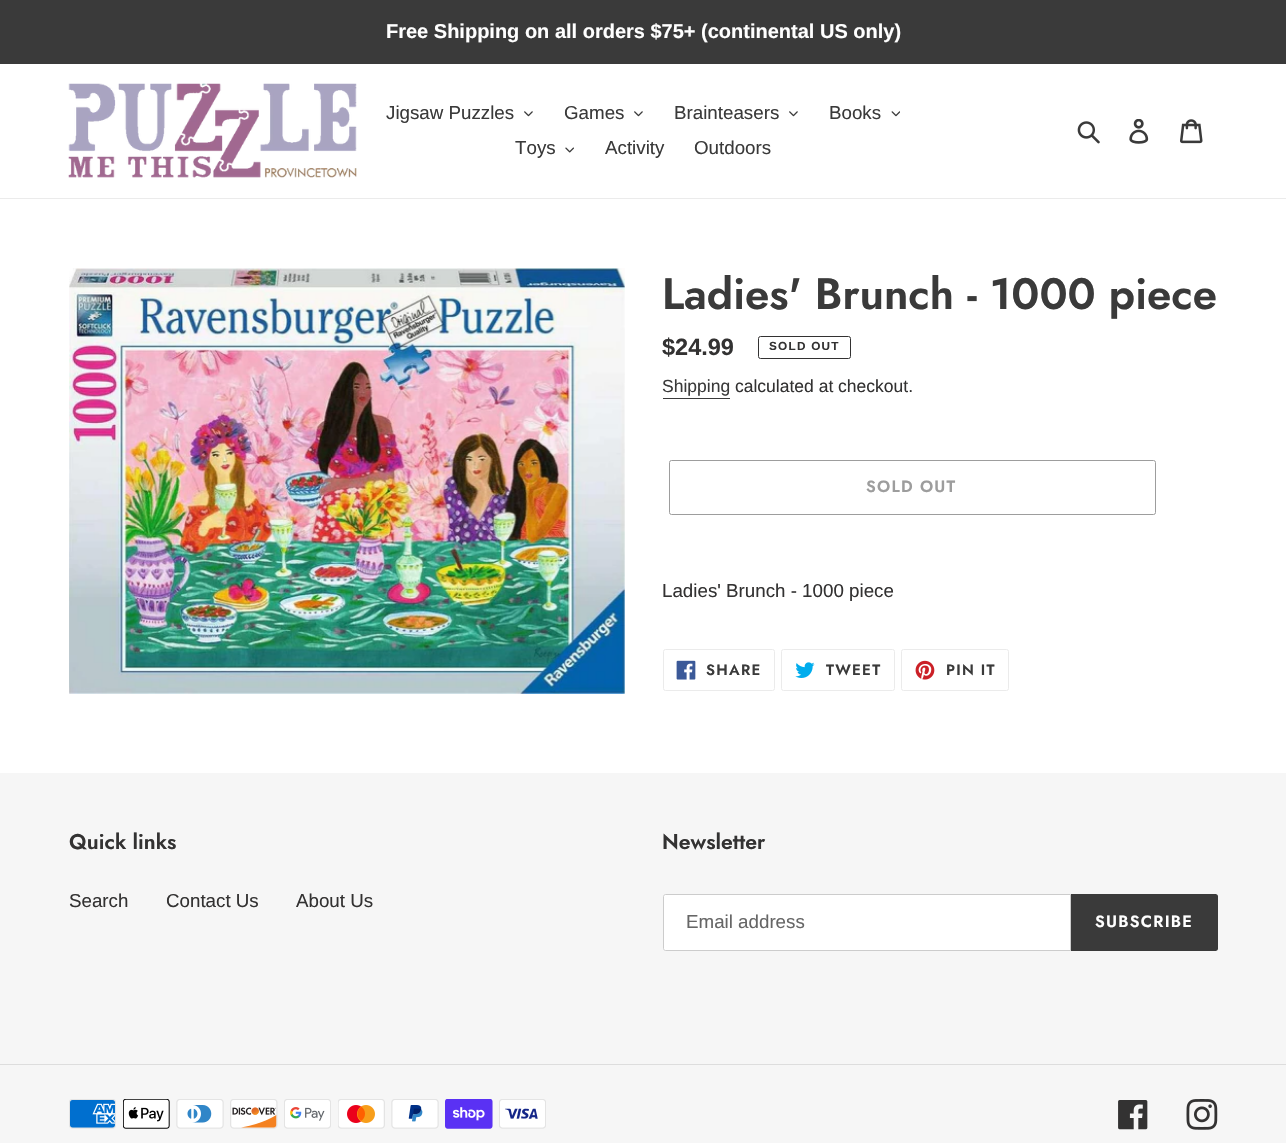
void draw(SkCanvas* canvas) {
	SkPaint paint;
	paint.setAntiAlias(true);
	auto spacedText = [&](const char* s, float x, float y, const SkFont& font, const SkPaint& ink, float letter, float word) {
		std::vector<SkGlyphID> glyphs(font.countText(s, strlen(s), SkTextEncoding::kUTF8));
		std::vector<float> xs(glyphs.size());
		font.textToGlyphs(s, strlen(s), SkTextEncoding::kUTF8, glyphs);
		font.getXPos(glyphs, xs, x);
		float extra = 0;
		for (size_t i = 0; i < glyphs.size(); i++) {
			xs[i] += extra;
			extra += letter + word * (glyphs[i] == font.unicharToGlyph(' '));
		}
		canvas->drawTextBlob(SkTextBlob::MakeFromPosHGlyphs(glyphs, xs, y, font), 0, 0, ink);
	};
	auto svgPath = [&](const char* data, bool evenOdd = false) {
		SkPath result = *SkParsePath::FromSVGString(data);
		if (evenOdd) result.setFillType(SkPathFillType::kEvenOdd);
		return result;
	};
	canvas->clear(0xffffffff);
	paint.setColor(0xff3a3a3a);
	canvas->drawRect(SkRect::MakeXYWH(0, 0, 1286, 64), paint);
	SkFont f1(fontMgr->matchFamilyStyle("Liberation Sans", SkFontStyle::Bold()), 20);
	f1.setSubpixel(true);
	paint.setColor(0xffffffff);
	canvas->drawString("Free Shipping on all orders $75+ (continental US only)", 386, 38, f1, paint);
	paint.setColor(0xffebebeb);
	canvas->drawRect(SkRect::MakeXYWH(0, 198, 1286, 1), paint);
	canvas->drawImageRect(SkImages::DeferredFromEncodedData(SkData::MakeFromFileName("img1.png")), SkRect::MakeXYWH(68, 83, 289, 95), SkSamplingOptions());
	SkFont f2(fontMgr->matchFamilyStyle("Liberation Sans", SkFontStyle::Normal()), 18.75);
	f2.setSubpixel(true);
	paint.setColor(0xff3a3a3a);
	canvas->drawString("Jigsaw Puzzles", 386, 119, f2, paint);
	canvas->drawImageRect(SkImages::DeferredFromEncodedData(SkData::MakeFromFileName("img2.png")), SkRect::MakeXYWH(524, 111, 9, 6), SkSamplingOptions());
	canvas->drawString("Games", 564, 119, f2, paint);
	canvas->drawImageRect(SkImages::DeferredFromEncodedData(SkData::MakeFromFileName("img2.png")), SkRect::MakeXYWH(634, 111, 9, 6), SkSamplingOptions());
	canvas->drawString("Brainteasers", 674, 119, f2, paint);
	canvas->drawImageRect(SkImages::DeferredFromEncodedData(SkData::MakeFromFileName("img2.png")), SkRect::MakeXYWH(789, 111, 9, 6), SkSamplingOptions());
	canvas->drawString("Books", 829, 119, f2, paint);
	canvas->drawImageRect(SkImages::DeferredFromEncodedData(SkData::MakeFromFileName("img3.png")), SkRect::MakeXYWH(891, 111, 9, 6), SkSamplingOptions());
	canvas->drawString("Toys", 515, 154, f2, paint);
	canvas->drawImageRect(SkImages::DeferredFromEncodedData(SkData::MakeFromFileName("img4.png")), SkRect::MakeXYWH(565, 147, 9, 6), SkSamplingOptions());
	canvas->drawString("Activity", 605, 154, f2, paint);
	canvas->drawString("Outdoors", 694, 154, f2, paint);
	canvas->drawImageRect(SkImages::DeferredFromEncodedData(SkData::MakeFromFileName("img5.png")), SkRect::MakeXYWH(1077, 121, 23, 23), SkSamplingOptions());
	canvas->drawImageRect(SkImages::DeferredFromEncodedData(SkData::MakeFromFileName("img6.png")), SkRect::MakeXYWH(1129, 119, 20, 25), SkSamplingOptions());
	canvas->drawImageRect(SkImages::DeferredFromEncodedData(SkData::MakeFromFileName("img7.png")), SkRect::MakeXYWH(1180, 119, 23, 25), SkSamplingOptions());
	canvas->drawImageRect(SkImages::DeferredFromEncodedData(SkData::MakeFromFileName("img8.png")), SkRect::MakeXYWH(69, 268, 556, 426), SkSamplingOptions());
	SkFont f3(fontMgr->matchFamilyStyle("Jost", SkFontStyle(600, SkFontStyle::kNormal_Width, SkFontStyle::kUpright_Slant)), 43.75);
	f3.setSubpixel(true);
	canvas->drawString("Ladies' Brunch - 1000 piece", 662, 309, f3, paint);
	SkFont f4(fontMgr->matchFamilyStyle("Liberation Sans", SkFontStyle::Bold()), 23.5);
	f4.setSubpixel(true);
	paint.setColor(0xff333232);
	canvas->drawString("$24.99", 662, 355, f4, paint);
	paint.setStroke(true);
	paint.setStrokeWidth(1);
	canvas->drawRoundRect(SkRect::MakeXYWH(758.5, 336.5, 92, 22), 2, 2, paint);
	SkFont f5(fontMgr->matchFamilyStyle("Liberation Sans", SkFontStyle::Bold()), 11.75);
	f5.setSubpixel(true);
	paint.setStroke(false);
	spacedText("SOLD OUT", 769, 350, f5, paint, 1.25, 0);
	SkFont f6(fontMgr->matchFamilyStyle("Liberation Sans", SkFontStyle::Normal()), 17.5);
	f6.setSubpixel(true);
	paint.setColor(0xff3a3a3a);
	canvas->drawString("Shipping", 662, 392, f6, paint);
	canvas->drawRect(SkRect::MakeXYWH(663, 398, 67, 1), paint);
	paint.setColor(0xff333232);
	canvas->drawString("calculated at checkout.", 735, 392, f6, paint);
	paint.setStroke(true);
	paint.setColor(0xff9d9d9d);
	canvas->drawRoundRect(SkRect::MakeXYWH(669.5, 460.5, 486, 54), 2, 2, paint);
	SkFont f7(fontMgr->matchFamilyStyle("Jost", SkFontStyle(600, SkFontStyle::kNormal_Width, SkFontStyle::kUpright_Slant)), 16.25);
	f7.setSubpixel(true);
	paint.setStroke(false);
	spacedText("SOLD OUT", 866, 492, f7, paint, 1.25, 0);
	paint.setColor(0xff333232);
	canvas->drawString("Ladies' Brunch - 1000 piece", 662, 597, f2, paint);
	paint.setStroke(true);
	paint.setColor(0xffebebeb);
	canvas->drawRoundRect(SkRect::MakeXYWH(663.5, 649.5, 111, 41), 2, 2, paint);
	canvas->drawImageRect(SkImages::DeferredFromEncodedData(SkData::MakeFromFileName("img9.png")), SkRect::MakeXYWH(676, 660, 20, 20), SkSamplingOptions());
	SkFont f8(fontMgr->matchFamilyStyle("Jost", SkFontStyle(600, SkFontStyle::kNormal_Width, SkFontStyle::kUpright_Slant)), 15);
	f8.setSubpixel(true);
	paint.setStroke(false);
	paint.setColor(0xff3a3a3a);
	spacedText("SHARE", 706, 675, f8, paint, 1.25, 0);
	paint.setStroke(true);
	paint.setColor(0xffebebeb);
	canvas->drawRoundRect(SkRect::MakeXYWH(781.5, 649.5, 113, 41), 2, 2, paint);
	canvas->drawImageRect(SkImages::DeferredFromEncodedData(SkData::MakeFromFileName("img10.png")), SkRect::MakeXYWH(795, 662, 20, 16), SkSamplingOptions());
	paint.setStroke(false);
	paint.setColor(0xff3a3a3a);
	spacedText("TWEET", 826, 675, f8, paint, 1.25, 0);
	paint.setStroke(true);
	paint.setColor(0xffebebeb);
	canvas->drawRoundRect(SkRect::MakeXYWH(901.5, 649.5, 107, 41), 2, 2, paint);
	canvas->drawImageRect(SkImages::DeferredFromEncodedData(SkData::MakeFromFileName("img11.png")), SkRect::MakeXYWH(915, 660, 20, 20), SkSamplingOptions());
	paint.setStroke(false);
	paint.setColor(0xff3a3a3a);
	spacedText("PIN IT", 946, 675, f8, paint, 1.25, 0);
	paint.setColor(0xfff6f6f6);
	canvas->drawRect(SkRect::MakeXYWH(0, 773, 1286, 370), paint);
	SkFont f9(fontMgr->matchFamilyStyle("Jost", SkFontStyle(600, SkFontStyle::kNormal_Width, SkFontStyle::kUpright_Slant)), 21.25);
	f9.setSubpixel(true);
	paint.setColor(0xff333232);
	canvas->drawString("Quick links", 69, 849, f9, paint);
	canvas->drawString("Search", 69, 907, f2, paint);
	canvas->drawString("Contact Us", 166, 907, f2, paint);
	canvas->drawString("About Us", 296, 907, f2, paint);
	canvas->drawString("Newsletter", 662, 849, f9, paint);
	paint.setColor(0xffffffff);
	canvas->drawPath(svgPath("M665.5 894.5H1070.5V950.5H665.5C664.5 950.5 663.5 949.5 663.5 948.5V896.5C663.5 895.5 664.5 894.5 665.5 894.5Z"), paint);
	paint.setStroke(true);
	paint.setColor(0xffcccccc);
	canvas->drawPath(svgPath("M665.5 894.5H1070.5V950.5H665.5C664.5 950.5 663.5 949.5 663.5 948.5V896.5C663.5 895.5 664.5 894.5 665.5 894.5Z"), paint);
	paint.setStroke(false);
	paint.setColor(0xff666666);
	canvas->drawString("Email address", 686, 928, f2, paint);
	paint.setColor(0xff3a3a3a);
	canvas->drawPath(svgPath("M1071 894H1215.5C1217 894 1218 895 1218 896.5V948.5C1218 950 1217 951 1215.5 951H1071Z"), paint);
	paint.setColor(0xffffffff);
	spacedText("SUBSCRIBE", 1095, 927, f7, paint, 1.25, 0);
	paint.setColor(0xffdddddd);
	canvas->drawRect(SkRect::MakeXYWH(0, 1064, 1286, 1), paint);
	canvas->drawImageRect(SkImages::DeferredFromEncodedData(SkData::MakeFromFileName("img12.png")), SkRect::MakeXYWH(69, 1099, 47, 30), SkSamplingOptions());
	canvas->drawImageRect(SkImages::DeferredFromEncodedData(SkData::MakeFromFileName("img13.png")), SkRect::MakeXYWH(123, 1099, 47, 30), SkSamplingOptions());
	canvas->drawImageRect(SkImages::DeferredFromEncodedData(SkData::MakeFromFileName("img14.png")), SkRect::MakeXYWH(176, 1099, 48, 30), SkSamplingOptions());
	canvas->drawImageRect(SkImages::DeferredFromEncodedData(SkData::MakeFromFileName("img15.png")), SkRect::MakeXYWH(230, 1099, 48, 30), SkSamplingOptions());
	canvas->drawImageRect(SkImages::DeferredFromEncodedData(SkData::MakeFromFileName("img16.png")), SkRect::MakeXYWH(284, 1099, 47, 30), SkSamplingOptions());
	canvas->drawImageRect(SkImages::DeferredFromEncodedData(SkData::MakeFromFileName("img17.png")), SkRect::MakeXYWH(338, 1099, 47, 30), SkSamplingOptions());
	canvas->drawImageRect(SkImages::DeferredFromEncodedData(SkData::MakeFromFileName("img18.png")), SkRect::MakeXYWH(391, 1099, 48, 30), SkSamplingOptions());
	canvas->drawImageRect(SkImages::DeferredFromEncodedData(SkData::MakeFromFileName("img19.png")), SkRect::MakeXYWH(445, 1099, 48, 30), SkSamplingOptions());
	canvas->drawImageRect(SkImages::DeferredFromEncodedData(SkData::MakeFromFileName("img20.png")), SkRect::MakeXYWH(499, 1099, 47, 30), SkSamplingOptions());
	canvas->drawImageRect(SkImages::DeferredFromEncodedData(SkData::MakeFromFileName("img21.png")), SkRect::MakeXYWH(1118, 1100, 30, 30), SkSamplingOptions());
	canvas->drawImageRect(SkImages::DeferredFromEncodedData(SkData::MakeFromFileName("img22.png")), SkRect::MakeXYWH(1186, 1099, 32, 31), SkSamplingOptions());
}
